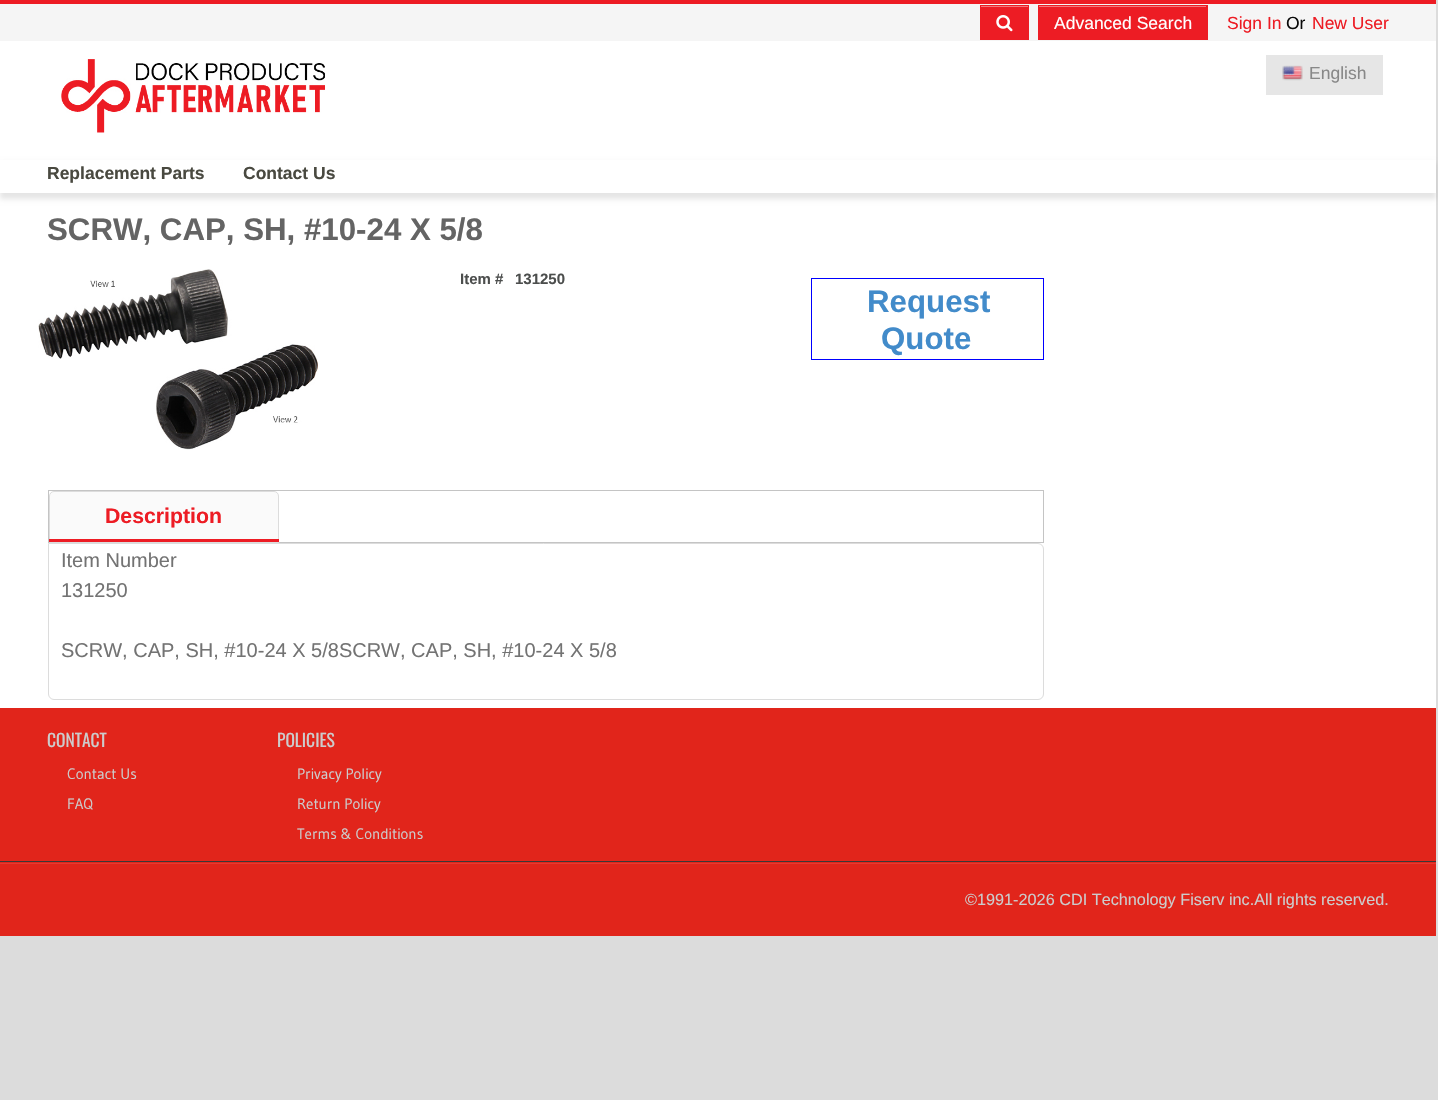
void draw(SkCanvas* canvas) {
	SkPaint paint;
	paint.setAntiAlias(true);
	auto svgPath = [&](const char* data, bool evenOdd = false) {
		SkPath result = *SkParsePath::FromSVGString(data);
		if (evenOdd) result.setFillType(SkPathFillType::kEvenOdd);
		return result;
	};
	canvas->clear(0xffdcdcdc);
	paint.setColor(0xffffffff);
	canvas->drawRect(SkRect::MakeXYWH(0, 41, 1436, 667), paint);
	paint.setColor(0xfff5f5f5);
	canvas->drawRect(SkRect::MakeXYWH(0, 4, 1436, 37), paint);
	paint.setColor(0xffed1c24);
	canvas->drawRect(SkRect::MakeXYWH(0, 0, 1436, 4), paint);
	canvas->drawRect(SkRect::MakeXYWH(980, 5, 49, 35), paint);
	paint.setColor(0xfff4777c);
	canvas->drawRect(SkRect::MakeXYWH(981, 6, 47, 1), paint);
	canvas->drawImageRect(SkImages::DeferredFromEncodedData(SkData::MakeFromFileName("img1.png")), SkRect::MakeXYWH(996, 15, 17, 17), SkSamplingOptions());
	paint.setColor(0xffed1c24);
	canvas->drawRect(SkRect::MakeXYWH(1038, 5, 170, 35), paint);
	paint.setColor(0xfff4777c);
	canvas->drawRect(SkRect::MakeXYWH(1039, 6, 167, 1), paint);
	SkFont f1(fontMgr->matchFamilyStyle("Liberation Sans", SkFontStyle::Normal()), 17.5);
	f1.setSubpixel(true);
	paint.setColor(0xffffffff);
	canvas->drawString("Advanced Search", 1054, 29, f1, paint);
	paint.setColor(0xffed1c24);
	canvas->drawString("Sign In", 1227, 29, f1, paint);
	paint.setColor(0xff0a0a0a);
	canvas->drawString("Or", 1286, 29, f1, paint);
	paint.setColor(0xffed1c24);
	canvas->drawString("New User", 1312, 29, f1, paint);
	canvas->drawImageRect(SkImages::DeferredFromEncodedData(SkData::MakeFromFileName("img2.png")), SkRect::MakeXYWH(61, 59, 264, 74), SkSamplingOptions());
	paint.setColor(0xffe6e6e6);
	canvas->drawRect(SkRect::MakeXYWH(1266, 55, 117, 40), paint);
	canvas->drawImageRect(SkImages::DeferredFromEncodedData(SkData::MakeFromFileName("img3.png")), SkRect::MakeXYWH(1282, 65, 21, 16), SkSamplingOptions());
	paint.setColor(0xff888888);
	canvas->drawString("English", 1309, 79, f1, paint);
	paint.setColor(0x1a000000);
	paint.setMaskFilter(SkMaskFilter::MakeBlur(kNormal_SkBlurStyle, 2.5));
	canvas->drawRect(SkRect::MakeXYWH(0, 163, 1436, 36), paint);
	paint.setMaskFilter(nullptr);
	paint.setColor(0xffffffff);
	canvas->drawRect(SkRect::MakeXYWH(0, 160, 1436, 33), paint);
	SkFont f2(fontMgr->matchFamilyStyle("Liberation Sans", SkFontStyle::Bold()), 17.5);
	f2.setSubpixel(true);
	paint.setColor(0xff494940);
	canvas->drawString("Replacement Parts", 47, 179, f2, paint);
	canvas->drawString("Contact Us", 243, 179, f2, paint);
	SkFont f3(fontMgr->matchFamilyStyle("Liberation Sans", SkFontStyle::Bold()), 31.25);
	f3.setSubpixel(true);
	paint.setColor(0xff646464);
	canvas->drawString("SCRW, CAP, SH, #10-24 X 5/8", 47, 240, f3, paint);
	canvas->drawImageRect(SkImages::DeferredFromEncodedData(SkData::MakeFromFileName("img4.png")), SkRect::MakeXYWH(38, 269, 280, 181), SkSamplingOptions());
	SkFont f4(fontMgr->matchFamilyStyle("Liberation Sans", SkFontStyle::Bold()), 15);
	f4.setSubpixel(true);
	paint.setColor(0xff4c4e4d);
	canvas->drawString("Item #", 460, 284, f4, paint);
	canvas->drawString("131250", 515, 284, f4, paint);
	paint.setStroke(true);
	paint.setStrokeWidth(1);
	paint.setColor(0xff0000ff);
	canvas->drawRect(SkRect::MakeXYWH(811.5, 278.5, 232, 81), paint);
	paint.setStroke(false);
	paint.setColor(0xff428bca);
	canvas->drawString("Request", 867, 312, f3, paint);
	canvas->drawString("Quote", 881, 349, f3, paint);
	paint.setStroke(true);
	paint.setColor(0xffc4c4c4);
	canvas->drawRect(SkRect::MakeXYWH(48.5, 490.5, 995, 52), paint);
	paint.setStroke(false);
	paint.setColor(0xfffafafa);
	canvas->drawPath(svgPath("M54 491.5H274C276.5 491.5 278.5 493.5 278.5 496V542.5H49.5V496C49.5 493.5 51.5 491.5 54 491.5Z"), paint);
	paint.setStroke(true);
	paint.setColor(0xffdcdcdc);
	canvas->drawPath(svgPath("M54 491.5H274C276.5 491.5 278.5 493.5 278.5 496V542.5H49.5V496C49.5 493.5 51.5 491.5 54 491.5Z"), paint);
	SkFont f5(fontMgr->matchFamilyStyle("Liberation Sans", SkFontStyle::Bold()), 21.25);
	f5.setSubpixel(true);
	paint.setStroke(false);
	paint.setColor(0xffed1c24);
	canvas->drawString("Description", 105, 523, f5, paint);
	canvas->drawRect(SkRect::MakeXYWH(49, 539, 230, 3), paint);
	paint.setStroke(true);
	paint.setColor(0xffdcdcdc);
	canvas->drawPath(svgPath("M48.5 543.5H1038C1041 543.5 1043.5 546 1043.5 549V694C1043.5 697 1041 699.5 1038 699.5H54C51 699.5 48.5 697 48.5 694Z"), paint);
	SkFont f6(fontMgr->matchFamilyStyle("Liberation Sans", SkFontStyle::Normal()), 20);
	f6.setSubpixel(true);
	paint.setStroke(false);
	paint.setColor(0xff737373);
	canvas->drawString("Item Number", 61, 567, f6, paint);
	canvas->drawString("131250", 61, 597, f6, paint);
	canvas->drawString("SCRW, CAP, SH, #10-24 X 5/8SCRW, CAP, SH, #10-24 X 5/8", 61, 657, f6, paint);
	paint.setColor(0xffe1251b);
	canvas->drawRect(SkRect::MakeXYWH(0, 708, 1436, 228), paint);
	SkFont f7(fontMgr->matchFamilyStyle("Oswald", SkFontStyle::Normal()), 17.5);
	f7.setSubpixel(true);
	paint.setColor(0xffcccccc);
	canvas->drawString("CONTACT", 47, 747, f7, paint);
	SkFont f8(fontMgr->matchFamilyStyle("Gudea", SkFontStyle::Normal()), 15);
	f8.setSubpixel(true);
	canvas->drawString("Contact Us", 67, 779, f8, paint);
	canvas->drawString("FAQ", 67, 809, f8, paint);
	canvas->drawString("POLICIES", 277, 747, f7, paint);
	canvas->drawString("Privacy Policy", 297, 779, f8, paint);
	canvas->drawString("Return Policy", 297, 809, f8, paint);
	canvas->drawString("Terms & Conditions", 297, 839, f8, paint);
	paint.setColor(0xffe43b32);
	canvas->drawRect(SkRect::MakeXYWH(0, 863, 1436, 1), paint);
	paint.setColor(0xff383938);
	canvas->drawRect(SkRect::MakeXYWH(0, 861, 1436, 1), paint);
	SkFont f9(fontMgr->matchFamilyStyle("Liberation Sans", SkFontStyle::Normal()), 16.25);
	f9.setSubpixel(true);
	paint.setColor(0xffcccccc);
	canvas->drawString("©1991-2026 CDI Technology Fiserv inc.All rights reserved.", 965, 905, f9, paint);
}
